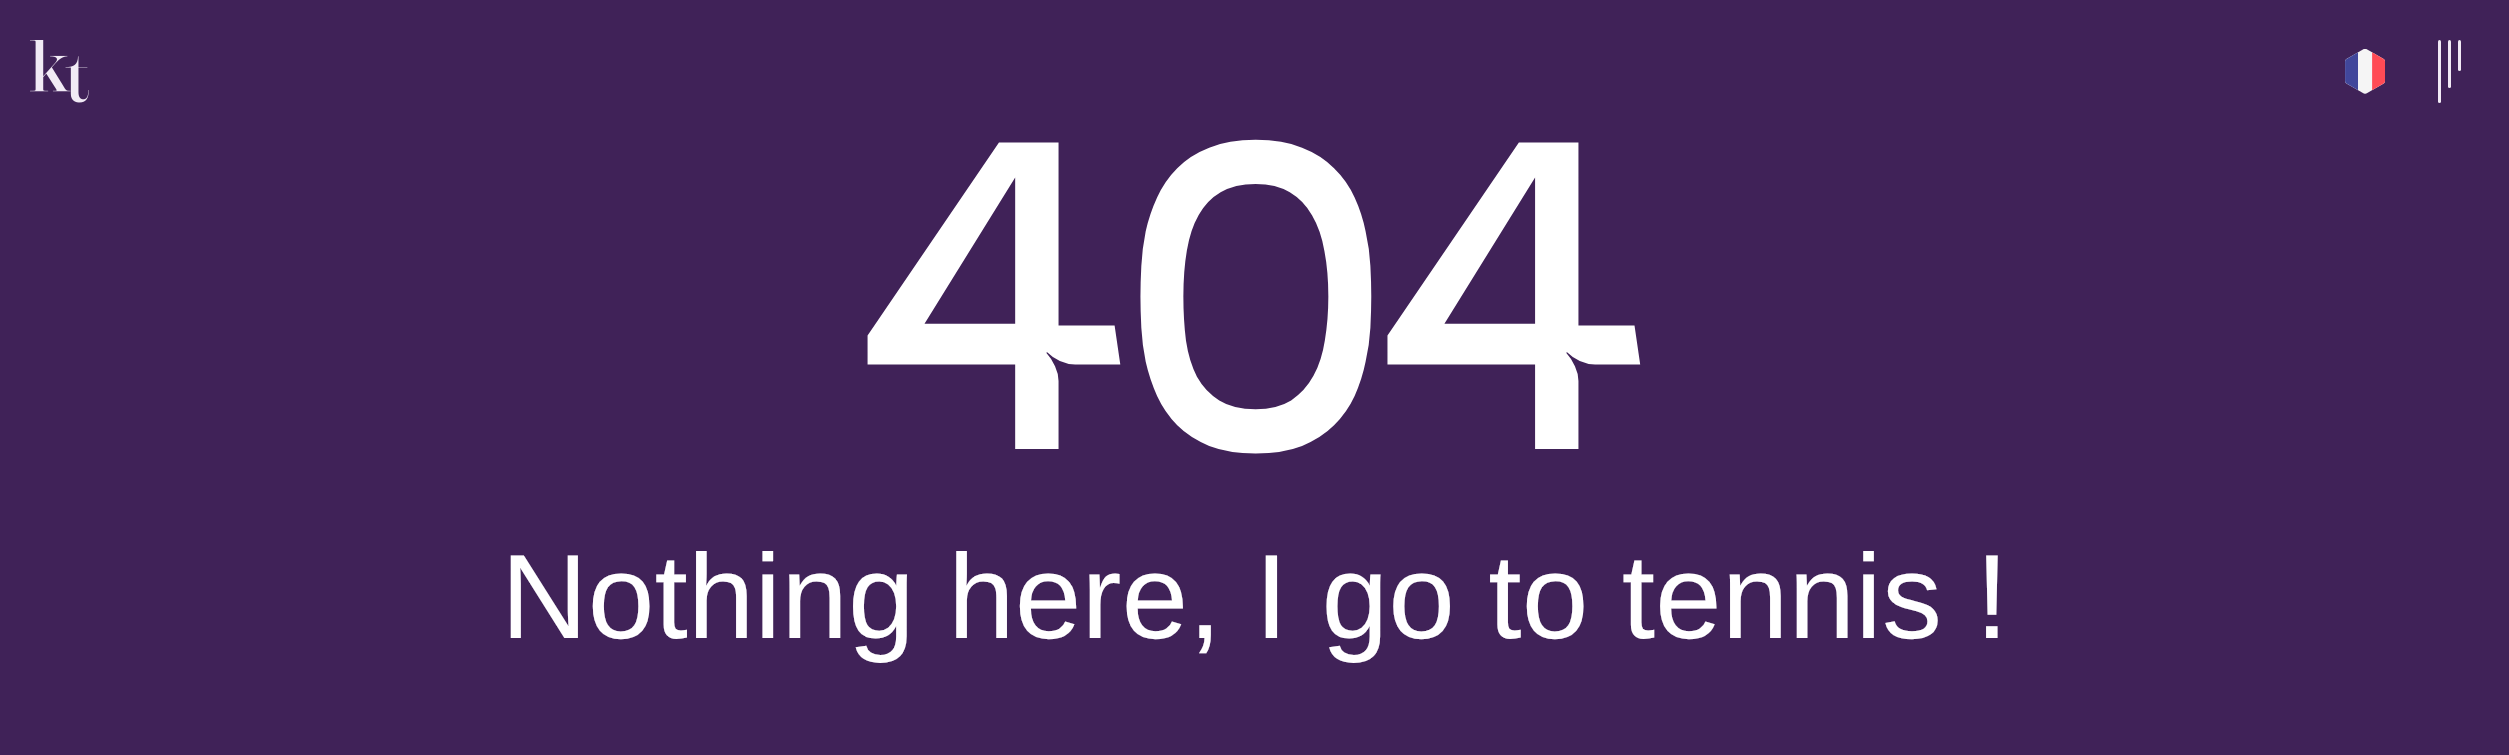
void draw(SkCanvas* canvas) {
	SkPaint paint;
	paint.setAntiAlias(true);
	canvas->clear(0xff402258);
	canvas->drawImageRect(SkImages::DeferredFromEncodedData(SkData::MakeFromFileName("img1.png")), SkRect::MakeXYWH(30, 40, 59, 63), SkSamplingOptions());
	canvas->drawImageRect(SkImages::DeferredFromEncodedData(SkData::MakeFromFileName("img2.png")), SkRect::MakeXYWH(2345, 49, 40, 45), SkSamplingOptions());
	paint.setColor(0xfff1eaf5);
	canvas->drawRoundRect(SkRect::MakeXYWH(2438, 40, 3, 63), 1.5, 1.5, paint);
	canvas->drawRoundRect(SkRect::MakeXYWH(2448, 40, 3, 48), 1.5, 1.5, paint);
	canvas->drawRoundRect(SkRect::MakeXYWH(2458, 40, 3, 31), 1.5, 1.5, paint);
	SkFont f1(fontMgr->matchFamilyStyle("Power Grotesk", SkFontStyle::Normal()), 438);
	f1.setSubpixel(true);
	paint.setColor(0xffffffff);
	canvas->drawString("404", 861, 449, f1, paint);
	SkFont f2(fontMgr->matchFamilyStyle("Liberation Sans", SkFontStyle::Normal()), 120);
	f2.setSubpixel(true);
	canvas->drawString("Nothing here, I go to tennis !", 501, 638, f2, paint);
}
